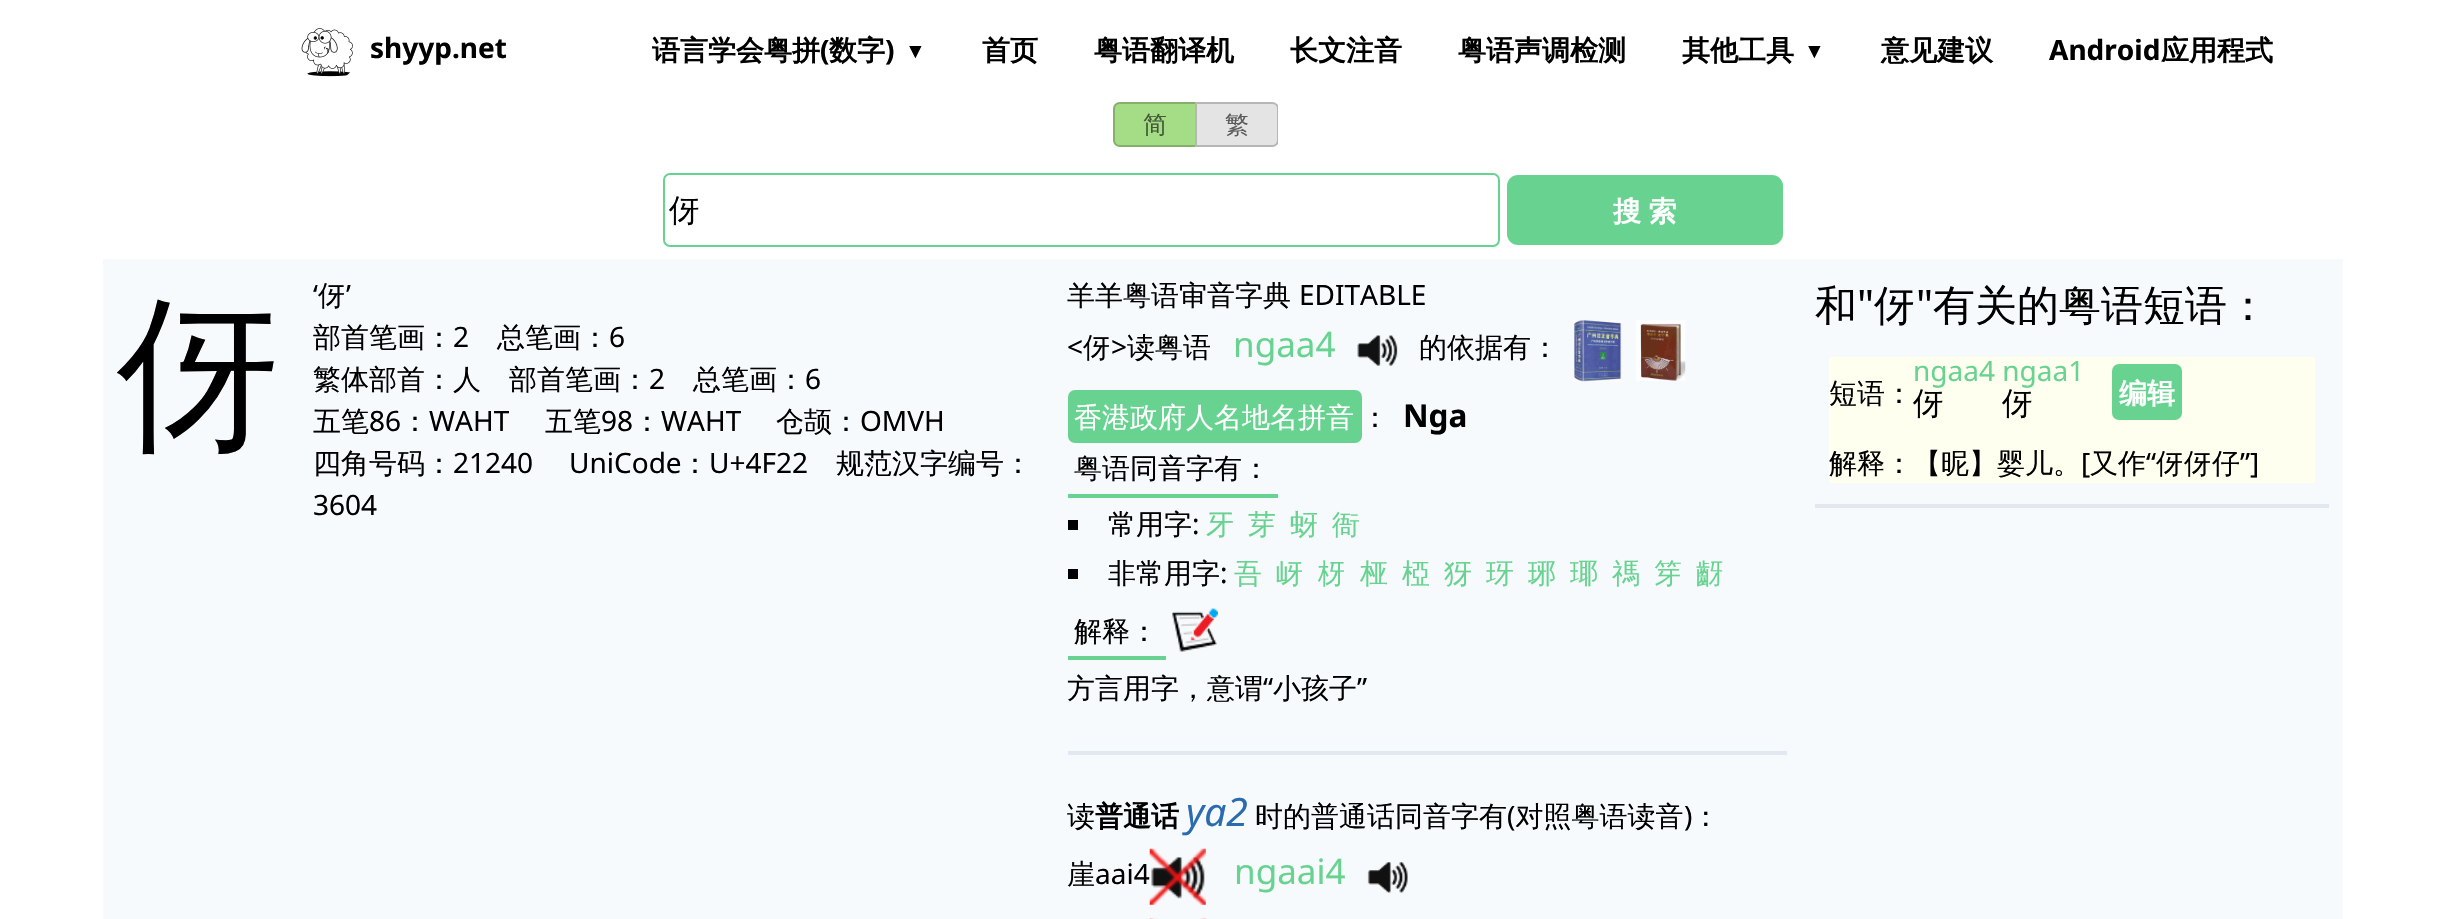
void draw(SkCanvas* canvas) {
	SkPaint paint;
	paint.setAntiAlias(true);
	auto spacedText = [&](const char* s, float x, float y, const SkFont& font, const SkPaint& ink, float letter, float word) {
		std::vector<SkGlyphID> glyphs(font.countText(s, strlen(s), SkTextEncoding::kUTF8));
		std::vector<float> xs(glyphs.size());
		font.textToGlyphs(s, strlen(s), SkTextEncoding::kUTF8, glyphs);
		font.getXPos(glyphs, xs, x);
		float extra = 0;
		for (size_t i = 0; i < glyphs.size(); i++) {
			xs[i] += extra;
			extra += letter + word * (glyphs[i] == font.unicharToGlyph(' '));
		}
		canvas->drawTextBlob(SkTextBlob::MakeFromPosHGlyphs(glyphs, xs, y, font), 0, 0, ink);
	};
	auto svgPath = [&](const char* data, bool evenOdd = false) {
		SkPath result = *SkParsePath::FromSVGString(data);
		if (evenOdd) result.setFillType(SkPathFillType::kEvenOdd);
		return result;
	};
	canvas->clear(0xffffffff);
	canvas->drawImageRect(SkImages::DeferredFromEncodedData(SkData::MakeFromFileName("img1.png")), SkRect::MakeXYWH(301, 28, 52, 49), SkSamplingOptions());
	SkFont f1(fontMgr->matchFamilyStyle("Noto Sans", SkFontStyle::Bold()), 28);
	f1.setSubpixel(true);
	paint.setColor(0xff000000);
	canvas->drawString("shyyp.net", 370, 58, f1, paint);
	SkFont f2(fontMgr->matchFamilyStyle("WenQuanYi Zen Hei", SkFontStyle::Bold()), 28);
	f2.setSubpixel(true);
	canvas->drawString("语言学会粤拼", 652, 60, f2, paint);
	canvas->drawString("(", 820, 60, f1, paint);
	canvas->drawString("数字", 829, 60, f2, paint);
	canvas->drawString(")", 885, 60, f1, paint);
	SkFont f3(fontMgr->matchFamilyStyle("Liberation Sans", SkFontStyle::Bold()), 21);
	f3.setSubpixel(true);
	canvas->drawString("▼", 905, 58, f3, paint);
	canvas->drawString("首页", 982, 60, f2, paint);
	canvas->drawString("粤语翻译机", 1094, 60, f2, paint);
	canvas->drawString("长文注音", 1290, 60, f2, paint);
	canvas->drawString("粤语声调检测", 1458, 60, f2, paint);
	canvas->drawString("其他工具", 1682, 60, f2, paint);
	canvas->drawString("▼", 1804, 58, f3, paint);
	canvas->drawString("意见建议", 1881, 60, f2, paint);
	canvas->drawString("Android", 2049, 60, f1, paint);
	canvas->drawString("应用程式", 2161, 60, f2, paint);
	paint.setColor(0xffa5dc86);
	canvas->drawPath(svgPath("M1120 102H1197V147H1120C1116 147 1113 144 1113 140V109C1113 105 1116 102 1120 102Z"), paint);
	paint.setStroke(true);
	paint.setStrokeWidth(2);
	paint.setColor(0x33000000);
	canvas->drawPath(svgPath("M1120 103H1196V146H1120C1116.5 146 1114 143.5 1114 140V109C1114 105.5 1116.5 103 1120 103Z"), paint);
	SkFont f4(fontMgr->matchFamilyStyle("WenQuanYi Zen Hei", SkFontStyle(500, SkFontStyle::kNormal_Width, SkFontStyle::kUpright_Slant)), 24);
	f4.setSubpixel(true);
	paint.setStroke(false);
	paint.setColor(0xff425836);
	canvas->drawString("简", 1143, 133, f4, paint);
	canvas->save();
	canvas->clipRect(SkRect::MakeXYWH(1113, 102, 165, 45));
	paint.setColor(0xffe4e4e4);
	canvas->drawPath(svgPath("M1195 102H1272C1276 102 1279 105 1279 109V140C1279 144 1276 147 1272 147H1195Z"), paint);
	paint.setStroke(true);
	paint.setColor(0x33000000);
	canvas->drawPath(svgPath("M1196 103H1272C1275.5 103 1278 105.5 1278 109V140C1278 143.5 1275.5 146 1272 146H1196Z"), paint);
	canvas->restore();
	paint.setStroke(false);
	paint.setColor(0xff5b5b5b);
	canvas->drawString("繁", 1225, 133, f4, paint);
	paint.setStroke(true);
	paint.setColor(0xff68d391);
	canvas->drawRoundRect(SkRect::MakeXYWH(664, 174, 835, 72), 6, 6, paint);
	SkFont f5(fontMgr->matchFamilyStyle("WenQuanYi Zen Hei", SkFontStyle(500, SkFontStyle::kNormal_Width, SkFontStyle::kUpright_Slant)), 31.5);
	f5.setSubpixel(true);
	paint.setStroke(false);
	paint.setColor(0xff000000);
	canvas->drawString("伢", 669, 221, f5, paint);
	paint.setColor(0xff68d391);
	canvas->drawRoundRect(SkRect::MakeXYWH(1507, 175, 276, 70), 11, 11, paint);
	paint.setColor(0xffffffff);
	spacedText("搜 索", 1613, 221, f2, paint, 0, -1);
	paint.setColor(0xfff7fafc);
	canvas->drawRect(SkRect::MakeXYWH(103, 259, 2240, 660), paint);
	SkFont f6(fontMgr->matchFamilyStyle("WenQuanYi Zen Hei", SkFontStyle(500, SkFontStyle::kNormal_Width, SkFontStyle::kUpright_Slant)), 168);
	f6.setSubpixel(true);
	paint.setColor(0xff000000);
	canvas->drawString("伢", 117, 432, f6, paint);
	SkFont f7(fontMgr->matchFamilyStyle("Noto Sans", SkFontStyle::Normal()), 28);
	f7.setSubpixel(true);
	canvas->drawString("‘", 313, 305, f7, paint);
	SkFont f8(fontMgr->matchFamilyStyle("WenQuanYi Zen Hei", SkFontStyle(500, SkFontStyle::kNormal_Width, SkFontStyle::kUpright_Slant)), 28);
	f8.setSubpixel(true);
	canvas->drawString("伢", 318, 305, f8, paint);
	canvas->drawString("’", 346, 305, f7, paint);
	canvas->drawString("部首笔画：", 313, 347, f8, paint);
	canvas->drawString("2", 453, 347, f7, paint);
	canvas->drawString("总笔画：", 497, 347, f8, paint);
	canvas->drawString("6", 609, 347, f7, paint);
	canvas->drawString("繁体部首：人", 313, 389, f8, paint);
	canvas->drawString("部首笔画：", 509, 389, f8, paint);
	canvas->drawString("2", 649, 389, f7, paint);
	canvas->drawString("总笔画：", 693, 389, f8, paint);
	canvas->drawString("6", 805, 389, f7, paint);
	canvas->drawString("五笔", 313, 431, f8, paint);
	canvas->drawString("86", 369, 431, f7, paint);
	canvas->drawString("：", 401, 431, f8, paint);
	canvas->drawString("WAHT", 429, 431, f7, paint);
	canvas->drawString("五笔", 545, 431, f8, paint);
	canvas->drawString("98", 601, 431, f7, paint);
	canvas->drawString("：", 633, 431, f8, paint);
	canvas->drawString("WAHT", 661, 431, f7, paint);
	canvas->drawString("仓颉：", 776, 431, f8, paint);
	canvas->drawString("OMVH", 860, 431, f7, paint);
	canvas->drawString("四角号码：", 313, 473, f8, paint);
	canvas->drawString("21240", 453, 473, f7, paint);
	canvas->drawString("UniCode", 569, 473, f7, paint);
	canvas->drawString("：", 681, 473, f8, paint);
	canvas->drawString("U+4F22", 709, 473, f7, paint);
	canvas->drawString("规范汉字编号：", 836, 473, f8, paint);
	canvas->drawString("3604", 313, 515, f7, paint);
	canvas->drawString("羊羊粤语审音字典", 1067, 305, f8, paint);
	canvas->drawString("EDITABLE", 1299, 305, f7, paint);
	paint.setColor(0xffe2e8f0);
	canvas->drawRect(SkRect::MakeXYWH(1068, 751, 719, 4), paint);
	paint.setColor(0xff000000);
	canvas->drawString("<", 1067, 357, f7, paint);
	canvas->drawString("伢", 1083, 357, f8, paint);
	canvas->drawString(">", 1111, 357, f7, paint);
	canvas->drawString("读粤语", 1127, 357, f8, paint);
	SkFont f9(fontMgr->matchFamilyStyle("Noto Sans", SkFontStyle::Normal()), 35);
	f9.setSubpixel(true);
	paint.setColor(0xff68d391);
	canvas->drawString("ngaa4", 1233, 357, f9, paint);
	canvas->drawImageRect(SkImages::DeferredFromEncodedData(SkData::MakeFromFileName("img2.png")), SkRect::MakeXYWH(1357, 335, 41, 31), SkSamplingOptions());
	paint.setColor(0xff000000);
	canvas->drawString("的依据有：", 1419, 357, f8, paint);
	canvas->drawImageRect(SkImages::DeferredFromEncodedData(SkData::MakeFromFileName("img3.png")), SkRect::MakeXYWH(1573, 320, 49, 62), SkSamplingOptions());
	canvas->drawImageRect(SkImages::DeferredFromEncodedData(SkData::MakeFromFileName("img4.png")), SkRect::MakeXYWH(1636, 320, 50, 61), SkSamplingOptions());
	paint.setColor(0xff68d391);
	canvas->drawRoundRect(SkRect::MakeXYWH(1068, 390, 294, 53), 7, 7, paint);
	paint.setColor(0xffffffff);
	canvas->drawString("香港政府人名地名拼音", 1074, 427, f8, paint);
	paint.setColor(0xff000000);
	canvas->drawString("：", 1361, 427, f8, paint);
	SkFont f10(fontMgr->matchFamilyStyle("Noto Sans", SkFontStyle::Bold()), 31.5);
	f10.setSubpixel(true);
	canvas->drawString("Nga", 1403, 427, f10, paint);
	canvas->drawString("粤语同音字有：", 1074, 478, f8, paint);
	paint.setColor(0xff68d391);
	canvas->drawRect(SkRect::MakeXYWH(1068, 494, 210, 4), paint);
	paint.setColor(0xff000000);
	canvas->drawRect(SkRect::MakeXYWH(1068, 520, 10, 10), paint);
	canvas->drawString("常用字", 1108, 534, f8, paint);
	canvas->drawString(":", 1192, 534, f7, paint);
	paint.setColor(0xff68d391);
	canvas->drawString("牙", 1206, 534, f8, paint);
	canvas->drawString("芽", 1248, 534, f8, paint);
	canvas->drawString("蚜", 1290, 534, f8, paint);
	canvas->drawString("衙", 1332, 534, f8, paint);
	paint.setColor(0xff000000);
	canvas->drawRect(SkRect::MakeXYWH(1068, 569, 10, 10), paint);
	canvas->drawString("非常用字", 1108, 583, f8, paint);
	canvas->drawString(":", 1220, 583, f7, paint);
	paint.setColor(0xff68d391);
	canvas->drawString("吾", 1234, 583, f8, paint);
	canvas->drawString("岈", 1276, 583, f8, paint);
	canvas->drawString("枒", 1318, 583, f8, paint);
	canvas->drawString("桠", 1360, 583, f8, paint);
	canvas->drawString("椏", 1402, 583, f8, paint);
	canvas->drawString("犽", 1444, 583, f8, paint);
	canvas->drawString("玡", 1486, 583, f8, paint);
	canvas->drawString("琊", 1528, 583, f8, paint);
	canvas->drawString("瑘", 1570, 583, f8, paint);
	canvas->drawString("禡", 1612, 583, f8, paint);
	canvas->drawString("笌", 1654, 583, f8, paint);
	canvas->drawString("齖", 1696, 583, f8, paint);
	paint.setColor(0xff000000);
	canvas->drawString("解释：", 1074, 641, f8, paint);
	paint.setColor(0xff68d391);
	canvas->drawRect(SkRect::MakeXYWH(1068, 656, 98, 4), paint);
	canvas->drawImageRect(SkImages::DeferredFromEncodedData(SkData::MakeFromFileName("img5.png")), SkRect::MakeXYWH(1172, 608, 46, 44), SkSamplingOptions());
	paint.setColor(0xff000000);
	canvas->drawString("方言用字，意谓", 1067, 698, f8, paint);
	canvas->drawString("“", 1263, 698, f7, paint);
	canvas->drawString("小孩子", 1273, 698, f8, paint);
	canvas->drawString("”", 1357, 698, f7, paint);
	canvas->drawString("读", 1067, 826, f8, paint);
	canvas->drawString("普通话", 1095, 826, f2, paint);
	SkFont f11(fontMgr->matchFamilyStyle("Noto Sans", SkFontStyle::Italic()), 39);
	f11.setSubpixel(true);
	paint.setColor(0xff2b6cb0);
	canvas->drawString("ya2", 1186, 826, f11, paint);
	paint.setColor(0xff000000);
	canvas->drawString("时的普通话同音字有 对照粤语读音 ：", 1255, 826, f8, paint);
	canvas->drawString("(", 1507, 826, f7, paint);
	canvas->drawString(")", 1684, 826, f7, paint);
	canvas->drawString("崖", 1067, 884, f8, paint);
	canvas->drawString("aai4", 1095, 884, f7, paint);
	canvas->drawImageRect(SkImages::DeferredFromEncodedData(SkData::MakeFromFileName("img6.png")), SkRect::MakeXYWH(1149, 848, 57, 57), SkSamplingOptions());
	paint.setColor(0xff68d391);
	canvas->drawString("ngaai4", 1234, 884, f9, paint);
	canvas->drawImageRect(SkImages::DeferredFromEncodedData(SkData::MakeFromFileName("img7.png")), SkRect::MakeXYWH(1367, 862, 41, 31), SkSamplingOptions());
	canvas->drawImageRect(SkImages::DeferredFromEncodedData(SkData::MakeFromFileName("img8.png")), SkRect::MakeXYWH(1149, 918, 57, 1), SkSamplingOptions());
	SkFont f12(fontMgr->matchFamilyStyle("WenQuanYi Zen Hei", SkFontStyle(500, SkFontStyle::kNormal_Width, SkFontStyle::kUpright_Slant)), 42);
	f12.setSubpixel(true);
	paint.setColor(0xff000000);
	canvas->drawString("和", 1815, 320, f12, paint);
	SkFont f13(fontMgr->matchFamilyStyle("Noto Sans", SkFontStyle::Normal()), 42);
	f13.setSubpixel(true);
	canvas->drawString("\"", 1857, 320, f13, paint);
	canvas->drawString("伢", 1874, 320, f12, paint);
	canvas->drawString("\"", 1916, 320, f13, paint);
	canvas->drawString("有关的粤语短语：", 1933, 320, f12, paint);
	paint.setColor(0xfffffff0);
	canvas->drawRect(SkRect::MakeXYWH(1829, 357, 486, 126), paint);
	paint.setColor(0xff000000);
	canvas->drawString("短语：", 1829, 403, f8, paint);
	paint.setColor(0xff68d391);
	canvas->drawString("ngaa4 ngaa1", 1913, 381, f7, paint);
	paint.setColor(0xff000000);
	canvas->drawString("伢", 1913, 414, f5, paint);
	paint.setColor(0xff68d391);
	canvas->drawRoundRect(SkRect::MakeXYWH(2112, 364, 70, 56), 7, 7, paint);
	paint.setColor(0xffffffff);
	canvas->drawString("编辑", 2119, 403, f2, paint);
	paint.setColor(0xff000000);
	canvas->drawString("伢", 2002, 414, f5, paint);
	canvas->drawString("解释：【昵】婴儿。", 1829, 473, f8, paint);
	canvas->drawString("[", 2081, 473, f7, paint);
	canvas->drawString("又作", 2090, 473, f8, paint);
	canvas->drawString("“", 2146, 473, f7, paint);
	canvas->drawString("伢伢仔", 2156, 473, f8, paint);
	canvas->drawString("”]", 2240, 473, f7, paint);
	paint.setColor(0xffe2e8f0);
	canvas->drawRect(SkRect::MakeXYWH(1815, 504, 514, 4), paint);
}
